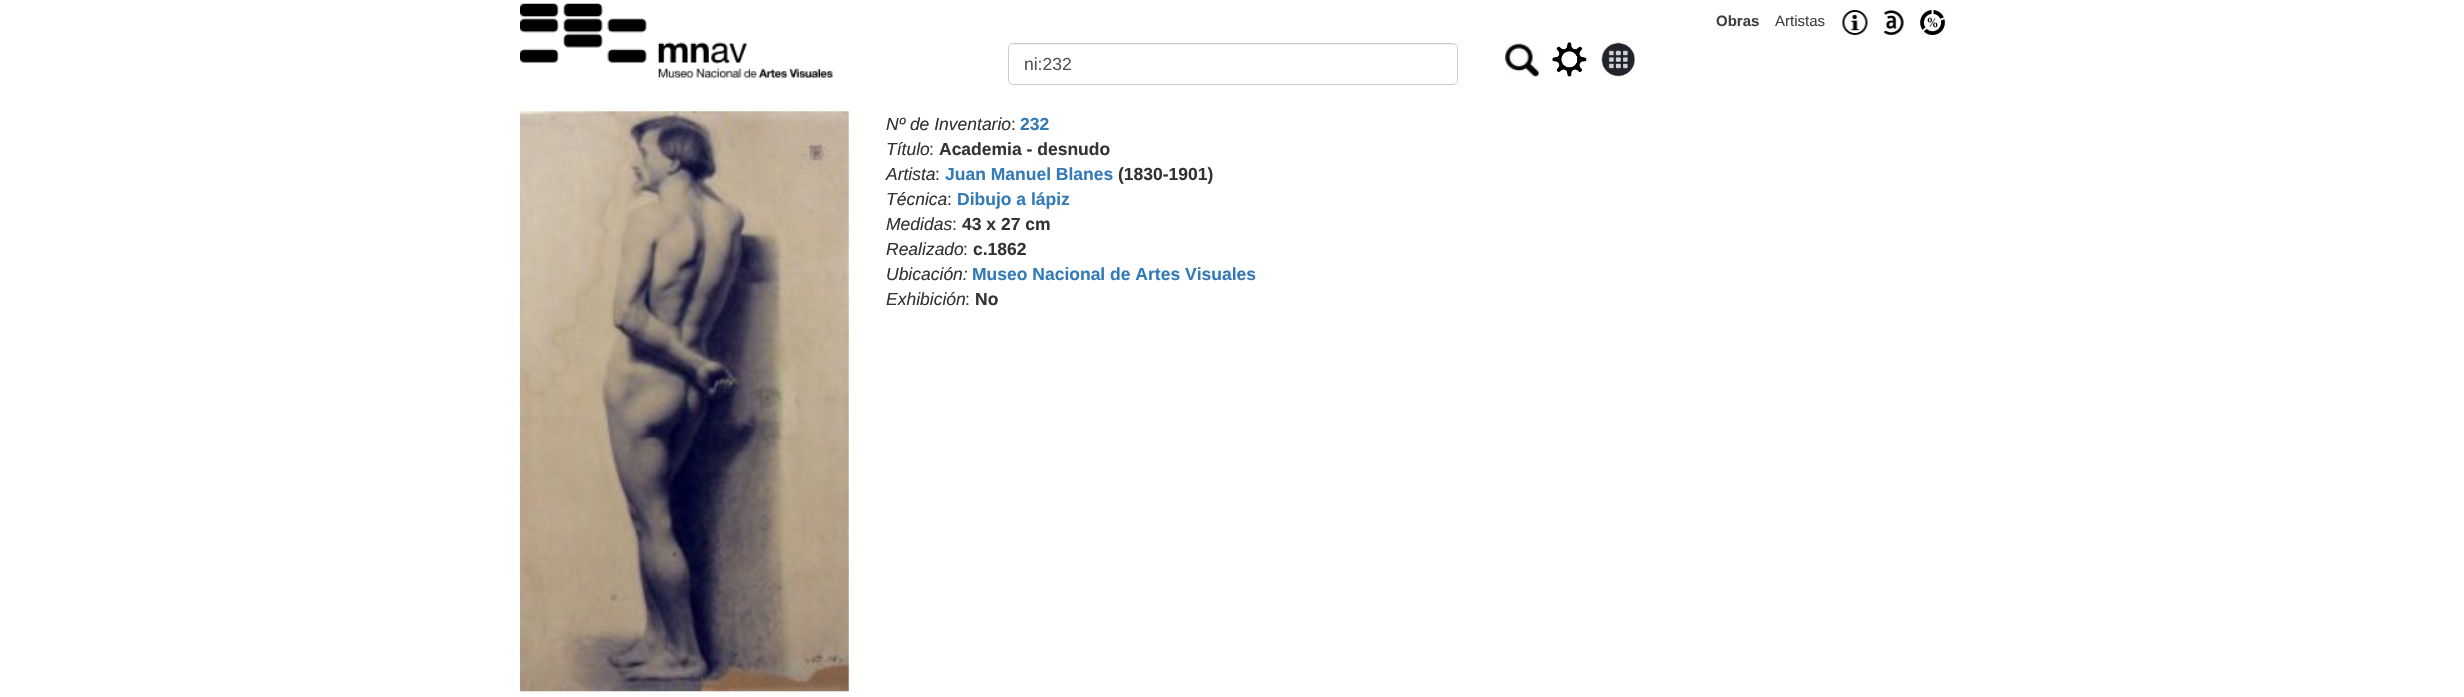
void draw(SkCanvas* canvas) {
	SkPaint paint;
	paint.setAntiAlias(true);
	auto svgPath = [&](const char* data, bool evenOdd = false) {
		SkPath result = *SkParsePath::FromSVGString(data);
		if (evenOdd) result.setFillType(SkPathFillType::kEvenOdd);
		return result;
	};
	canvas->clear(0xffffffff);
	canvas->drawImageRect(SkImages::DeferredFromEncodedData(SkData::MakeFromFileName("img1.png")), SkRect::MakeXYWH(520, 3, 313, 75), SkSamplingOptions());
	SkFont f1(fontMgr->matchFamilyStyle("Liberation Sans", SkFontStyle::Bold()), 15);
	f1.setSubpixel(true);
	paint.setColor(0xff404040);
	canvas->drawString("Obras", 1716, 26, f1, paint);
	SkFont f2(fontMgr->matchFamilyStyle("Liberation Sans", SkFontStyle::Normal()), 15);
	f2.setSubpixel(true);
	canvas->drawString("Artistas", 1775, 26, f2, paint);
	canvas->drawImageRect(SkImages::DeferredFromEncodedData(SkData::MakeFromFileName("img2.png")), SkRect::MakeXYWH(1842, 10, 26, 25), SkSamplingOptions());
	canvas->drawImageRect(SkImages::DeferredFromEncodedData(SkData::MakeFromFileName("img3.png")), SkRect::MakeXYWH(1883, 10, 21, 25), SkSamplingOptions());
	canvas->drawImageRect(SkImages::DeferredFromEncodedData(SkData::MakeFromFileName("img4.png")), SkRect::MakeXYWH(1920, 10, 25, 25), SkSamplingOptions());
	paint.setColor(0xffececec);
	canvas->drawPath(svgPath("M1012 45H1452C1455 45 1456 47 1456 49C1456 46 1455 44 1452 44H1013L1011 45L1010 46L1009 49C1009 47 1010 45 1012 45Z"), paint);
	paint.setStroke(true);
	paint.setStrokeWidth(1);
	paint.setColor(0xffcccccc);
	canvas->drawRoundRect(SkRect::MakeXYWH(1008.5, 43.5, 449, 41), 4.5, 4.5, paint);
	SkFont f3(fontMgr->matchFamilyStyle("Liberation Sans", SkFontStyle::Normal()), 17.5);
	f3.setSubpixel(true);
	paint.setStroke(false);
	paint.setColor(0xff555555);
	canvas->drawString("ni:232", 1024, 70, f3, paint);
	canvas->drawImageRect(SkImages::DeferredFromEncodedData(SkData::MakeFromFileName("img5.png")), SkRect::MakeXYWH(1505, 43, 34, 34), SkSamplingOptions());
	canvas->drawImageRect(SkImages::DeferredFromEncodedData(SkData::MakeFromFileName("img6.png")), SkRect::MakeXYWH(1552, 42, 35, 35), SkSamplingOptions());
	canvas->drawImageRect(SkImages::DeferredFromEncodedData(SkData::MakeFromFileName("img7.png")), SkRect::MakeXYWH(1601, 42, 34, 35), SkSamplingOptions());
	canvas->drawImageRect(SkImages::DeferredFromEncodedData(SkData::MakeFromFileName("img8.png")), SkRect::MakeXYWH(520, 111, 329, 581), SkSamplingOptions());
	SkFont f4(fontMgr->matchFamilyStyle("Liberation Sans", SkFontStyle::Italic()), 17.5);
	f4.setSubpixel(true);
	paint.setColor(0xff333333);
	canvas->drawString("Nº de Inventario", 886, 130, f4, paint);
	canvas->drawString(":", 1011, 130, f3, paint);
	SkFont f5(fontMgr->matchFamilyStyle("Liberation Sans", SkFontStyle::Bold()), 17.5);
	f5.setSubpixel(true);
	paint.setColor(0xff337ab7);
	canvas->drawString("232", 1020, 130, f5, paint);
	paint.setColor(0xff333333);
	canvas->drawString("Título", 886, 155, f4, paint);
	canvas->drawString(":", 929, 155, f3, paint);
	canvas->drawString("Academia - desnudo", 939, 155, f5, paint);
	canvas->drawString("Artista", 886, 180, f4, paint);
	canvas->drawString(":", 935, 180, f3, paint);
	paint.setColor(0xff337ab7);
	canvas->drawString("Juan Manuel Blanes", 945, 180, f5, paint);
	paint.setColor(0xff333333);
	canvas->drawString("(1830-1901)", 1118, 180, f5, paint);
	canvas->drawString("Técnica", 886, 205, f4, paint);
	canvas->drawString(":", 947, 205, f3, paint);
	paint.setColor(0xff337ab7);
	canvas->drawString("Dibujo a lápiz", 957, 205, f5, paint);
	paint.setColor(0xff333333);
	canvas->drawString("Medidas", 886, 230, f4, paint);
	canvas->drawString(":", 952, 230, f3, paint);
	canvas->drawString("43 x 27 cm", 962, 230, f5, paint);
	canvas->drawString("Realizado", 886, 255, f4, paint);
	canvas->drawString(":", 963, 255, f3, paint);
	canvas->drawString("c.1862", 973, 255, f5, paint);
	canvas->drawString("Ubicación:", 886, 280, f4, paint);
	paint.setColor(0xff337ab7);
	canvas->drawString("Museo Nacional de Artes Visuales", 972, 280, f5, paint);
	paint.setColor(0xff333333);
	canvas->drawString("Exhibición", 886, 305, f4, paint);
	canvas->drawString(":", 965, 305, f3, paint);
	canvas->drawString("No", 975, 305, f5, paint);
}
